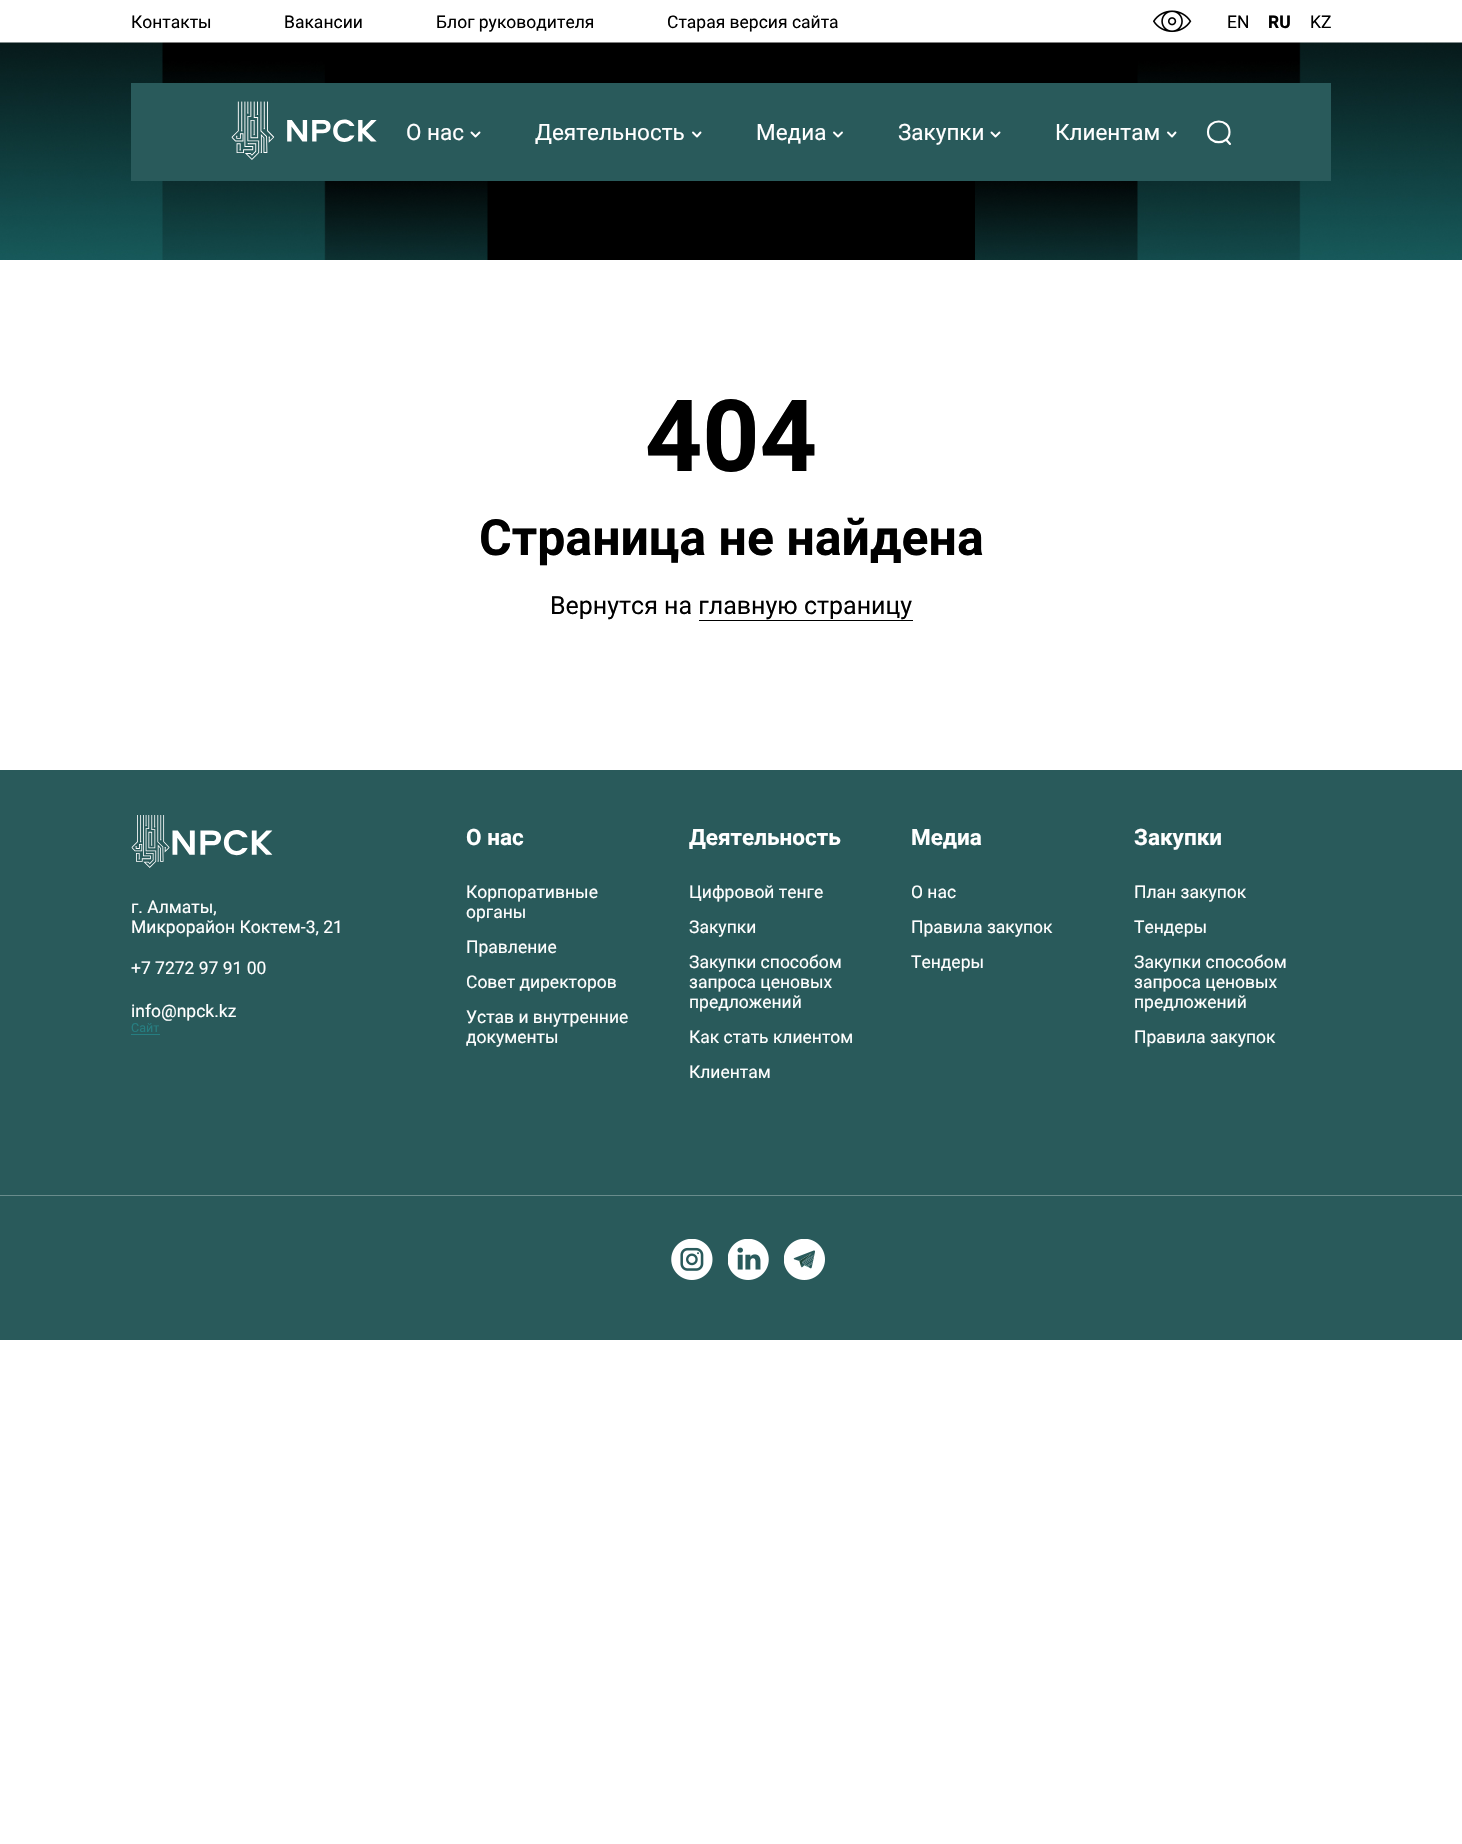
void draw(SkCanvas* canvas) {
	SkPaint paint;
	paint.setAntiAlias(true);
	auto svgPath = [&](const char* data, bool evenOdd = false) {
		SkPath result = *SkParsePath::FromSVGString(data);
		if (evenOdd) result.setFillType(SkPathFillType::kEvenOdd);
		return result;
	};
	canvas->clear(0xffffffff);
	SkFont f1(fontMgr->matchFamilyStyle("Roboto", SkFontStyle::Normal()), 17.5);
	f1.setSubpixel(true);
	paint.setColor(0xff000000);
	canvas->drawString("Контакты", 131, 28, f1, paint);
	canvas->drawString("Вакансии", 284, 28, f1, paint);
	canvas->drawString("Блог руководителя", 436, 28, f1, paint);
	canvas->drawString("Старая версия сайта", 667, 28, f1, paint);
	canvas->drawImageRect(SkImages::DeferredFromEncodedData(SkData::MakeFromFileName("img1.png")), SkRect::MakeXYWH(1153, 10, 39, 23), SkSamplingOptions());
	canvas->drawString("EN", 1227, 28, f1, paint);
	SkFont f2(fontMgr->matchFamilyStyle("Roboto", SkFontStyle::Bold()), 17.5);
	f2.setSubpixel(true);
	canvas->drawString("RU", 1268, 28, f2, paint);
	canvas->drawString("KZ", 1310, 28, f1, paint);
	canvas->drawImageRect(SkImages::DeferredFromEncodedData(SkData::MakeFromFileName("img2.png")), SkRect::MakeXYWH(0, 42, 1462, 218), SkSamplingOptions());
	paint.setColor(0xff295a5b);
	canvas->drawRect(SkRect::MakeXYWH(131, 83, 1200, 98), paint);
	canvas->drawImageRect(SkImages::DeferredFromEncodedData(SkData::MakeFromFileName("img3.png")), SkRect::MakeXYWH(231, 101, 146, 59), SkSamplingOptions());
	SkFont f3(fontMgr->matchFamilyStyle("Roboto", SkFontStyle::Normal()), 22.5);
	f3.setSubpixel(true);
	paint.setColor(0xffffffff);
	canvas->drawString("О нас", 406, 140, f3, paint);
	paint.setStroke(true);
	paint.setStrokeWidth(1.9);
	paint.setStrokeCap(SkPaint::kRound_Cap);
	paint.setStrokeJoin(SkPaint::kRound_Join);
	canvas->drawPath(svgPath("M479.5 132.5L475.5 136.5L471.5 132.5"), paint);
	paint.setStroke(false);
	canvas->drawString("Деятельность", 535, 140, f3, paint);
	paint.setStroke(true);
	canvas->drawPath(svgPath("M700.5 132.5L697 136.5L693 132.5"), paint);
	paint.setStroke(false);
	canvas->drawString("Медиа", 756, 140, f3, paint);
	paint.setStroke(true);
	canvas->drawPath(svgPath("M842 132.5L838 136.5L834 132.5"), paint);
	paint.setStroke(false);
	canvas->drawString("Закупки", 898, 140, f3, paint);
	paint.setStroke(true);
	canvas->drawPath(svgPath("M999.5 132.5L995.5 136.5L991.5 132.5"), paint);
	paint.setStroke(false);
	canvas->drawString("Клиентам", 1055, 140, f3, paint);
	paint.setStroke(true);
	canvas->drawPath(svgPath("M1175.5 132.5L1172 136.5L1168 132.5"), paint);
	paint.setStrokeWidth(2.1);
	canvas->drawPath(svgPath("M1226 139.5L1230 144M1229.5 132C1229.5 145.5 1208 145.5 1208 132C1208 118 1229.5 118 1229.5 132Z"), paint);
	SkFont f4(fontMgr->matchFamilyStyle("Roboto", SkFontStyle::Bold()), 100);
	f4.setSubpixel(true);
	paint.setStroke(false);
	paint.setColor(0xff000000);
	canvas->drawString("404", 645, 471, f4, paint);
	SkFont f5(fontMgr->matchFamilyStyle("Roboto", SkFontStyle::Bold()), 50);
	f5.setSubpixel(true);
	canvas->drawString("Страница не найдена", 479, 555, f5, paint);
	SkFont f6(fontMgr->matchFamilyStyle("Roboto", SkFontStyle::Normal()), 25);
	f6.setSubpixel(true);
	canvas->drawString("Вернутся на главную страницу", 550, 614, f6, paint);
	canvas->drawRect(SkRect::MakeXYWH(699, 620, 214, 1), paint);
	paint.setColor(0xff295a5b);
	canvas->drawRect(SkRect::MakeXYWH(0, 770, 1462, 570), paint);
	canvas->drawImageRect(SkImages::DeferredFromEncodedData(SkData::MakeFromFileName("img4.png")), SkRect::MakeXYWH(131, 815, 142, 53), SkSamplingOptions());
	paint.setColor(0xffffffff);
	canvas->drawString("г. Алматы,", 131, 913, f1, paint);
	canvas->drawString("Микрорайон Коктем-3, 21", 131, 933, f1, paint);
	canvas->drawString("+7 7272 97 91 00", 131, 974, f1, paint);
	canvas->drawString("info@npck.kz", 131, 1017, f1, paint);
	SkFont f7(fontMgr->matchFamilyStyle("Roboto", SkFontStyle::Normal()), 12.5);
	f7.setSubpixel(true);
	paint.setColor(0xff267e81);
	canvas->drawString("Сайт", 131, 1032, f7, paint);
	canvas->drawRect(SkRect::MakeXYWH(131, 1034, 29, 1), paint);
	SkFont f8(fontMgr->matchFamilyStyle("Roboto", SkFontStyle::Bold()), 22.5);
	f8.setSubpixel(true);
	paint.setColor(0xffffffff);
	canvas->drawString("О нас", 466, 845, f8, paint);
	canvas->drawString("Корпоративные", 466, 898, f1, paint);
	canvas->drawString("органы", 466, 918, f1, paint);
	canvas->drawString("Правление", 466, 953, f1, paint);
	canvas->drawString("Совет директоров", 466, 988, f1, paint);
	canvas->drawString("Устав и внутренние", 466, 1023, f1, paint);
	canvas->drawString("документы", 466, 1043, f1, paint);
	canvas->drawString("Деятельность", 689, 845, f8, paint);
	canvas->drawString("Цифровой тенге", 689, 898, f1, paint);
	canvas->drawString("Закупки", 689, 933, f1, paint);
	canvas->drawString("Закупки способом", 689, 968, f1, paint);
	canvas->drawString("запроса ценовых", 689, 988, f1, paint);
	canvas->drawString("предложений", 689, 1008, f1, paint);
	canvas->drawString("Как стать клиентом", 689, 1043, f1, paint);
	canvas->drawString("Клиентам", 689, 1078, f1, paint);
	canvas->drawString("Медиа", 911, 845, f8, paint);
	canvas->drawString("О нас", 911, 898, f1, paint);
	canvas->drawString("Правила закупок", 911, 933, f1, paint);
	canvas->drawString("Тендеры", 911, 968, f1, paint);
	canvas->drawString("Закупки", 1134, 845, f8, paint);
	canvas->drawString("План закупок", 1134, 898, f1, paint);
	canvas->drawString("Тендеры", 1134, 933, f1, paint);
	canvas->drawString("Закупки способом", 1134, 968, f1, paint);
	canvas->drawString("запроса ценовых", 1134, 988, f1, paint);
	canvas->drawString("предложений", 1134, 1008, f1, paint);
	canvas->drawString("Правила закупок", 1134, 1043, f1, paint);
	paint.setColor(0xff698c8c);
	canvas->drawRect(SkRect::MakeXYWH(0, 1195, 1462, 1), paint);
	canvas->drawImageRect(SkImages::DeferredFromEncodedData(SkData::MakeFromFileName("img5.png")), SkRect::MakeXYWH(671, 1239, 42, 41), SkSamplingOptions());
	canvas->drawImageRect(SkImages::DeferredFromEncodedData(SkData::MakeFromFileName("img6.png")), SkRect::MakeXYWH(728, 1239, 41, 41), SkSamplingOptions());
	canvas->drawImageRect(SkImages::DeferredFromEncodedData(SkData::MakeFromFileName("img7.png")), SkRect::MakeXYWH(784, 1239, 41, 41), SkSamplingOptions());
}
